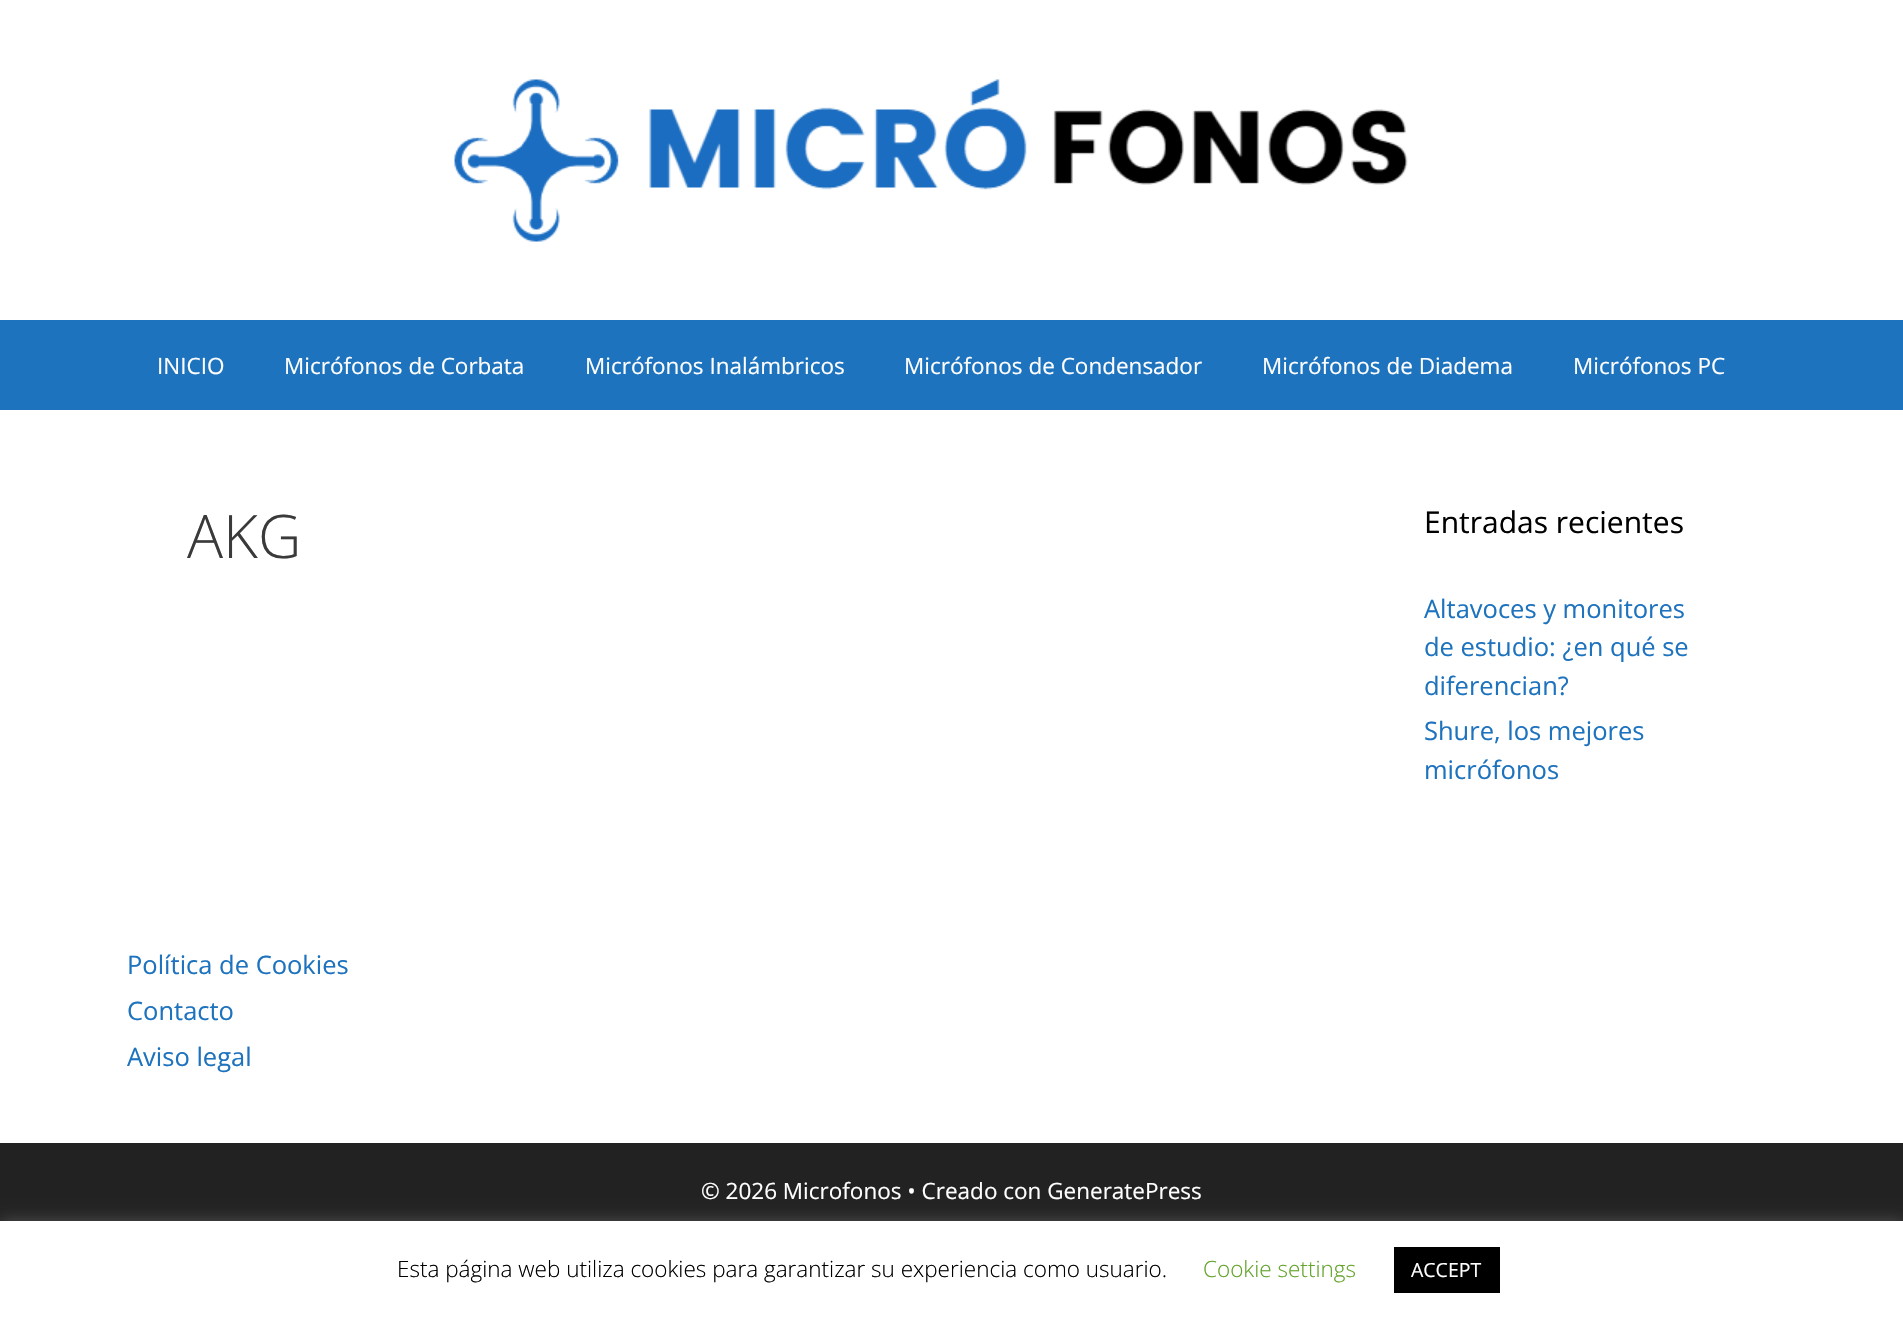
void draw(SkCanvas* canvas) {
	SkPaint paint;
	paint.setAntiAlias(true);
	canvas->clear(0xffffffff);
	canvas->drawImageRect(SkImages::DeferredFromEncodedData(SkData::MakeFromFileName("img1.png")), SkRect::MakeXYWH(454, 79, 954, 163), SkSamplingOptions());
	paint.setColor(0xff1e73be);
	canvas->drawRect(SkRect::MakeXYWH(0, 320, 1903, 90), paint);
	SkFont f1(fontMgr->matchFamilyStyle("Open Sans", SkFontStyle::Normal()), 22.5);
	f1.setSubpixel(true);
	paint.setColor(0xffffffff);
	canvas->drawString("INICIO", 157, 374, f1, paint);
	canvas->drawString("Micrófonos de Corbata", 284, 374, f1, paint);
	canvas->drawString("Micrófonos Inalámbricos", 585, 374, f1, paint);
	canvas->drawString("Micrófonos de Condensador", 904, 374, f1, paint);
	canvas->drawString("Micrófonos de Diadema", 1262, 374, f1, paint);
	canvas->drawString("Micrófonos PC", 1573, 374, f1, paint);
	SkFont f2(fontMgr->matchFamilyStyle("Open Sans", SkFontStyle(300, SkFontStyle::kNormal_Width, SkFontStyle::kUpright_Slant)), 60);
	f2.setSubpixel(true);
	paint.setColor(0xff3a3a3a);
	canvas->drawString("AKG", 187, 558, f2, paint);
	SkFont f3(fontMgr->matchFamilyStyle("Open Sans", SkFontStyle::Normal()), 30);
	f3.setSubpixel(true);
	paint.setColor(0xff000000);
	canvas->drawString("Entradas recientes", 1424, 533, f3, paint);
	SkFont f4(fontMgr->matchFamilyStyle("Open Sans", SkFontStyle::Normal()), 25.5);
	f4.setSubpixel(true);
	paint.setColor(0xff1e73be);
	canvas->drawString("Altavoces y monitores", 1424, 618, f4, paint);
	canvas->drawString("de estudio: ¿en qué se", 1424, 656, f4, paint);
	canvas->drawString("diferencian?", 1424, 695, f4, paint);
	canvas->drawString("Shure, los mejores", 1424, 740, f4, paint);
	canvas->drawString("micrófonos", 1424, 779, f4, paint);
	canvas->drawString("Política de Cookies", 127, 974, f4, paint);
	canvas->drawString("Contacto", 127, 1020, f4, paint);
	canvas->drawString("Aviso legal", 127, 1066, f4, paint);
	paint.setColor(0xff222222);
	canvas->drawRect(SkRect::MakeXYWH(0, 1143, 1903, 78), paint);
	paint.setColor(0xffffffff);
	canvas->drawString("© 2026 Microfonos • Creado con GeneratePress", 701, 1199, f1, paint);
	paint.setColor(0x4dacabab);
	paint.setMaskFilter(SkMaskFilter::MakeBlur(kNormal_SkBlurStyle, 7.5));
	canvas->drawRect(SkRect::MakeXYWH(0, 1220, 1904, 97), paint);
	paint.setMaskFilter(nullptr);
	paint.setColor(0xffffffff);
	canvas->drawRect(SkRect::MakeXYWH(0, 1221, 1903, 97), paint);
	SkFont f5(fontMgr->matchFamilyStyle("Open Sans", SkFontStyle(300, SkFontStyle::kNormal_Width, SkFontStyle::kUpright_Slant)), 22.5);
	f5.setSubpixel(true);
	paint.setColor(0xff000000);
	canvas->drawString("Esta página web utiliza cookies para garantizar su experiencia como usuario.", 397, 1277, f5, paint);
	paint.setColor(0xff62a329);
	canvas->drawString("Cookie settings", 1203, 1277, f5, paint);
	paint.setColor(0xff000000);
	canvas->drawRect(SkRect::MakeXYWH(1394, 1247, 106, 46), paint);
	SkFont f6(fontMgr->matchFamilyStyle("Open Sans", SkFontStyle::Normal()), 19.5);
	f6.setSubpixel(true);
	paint.setColor(0xffffffff);
	canvas->drawString("ACCEPT", 1411, 1277, f6, paint);
}
